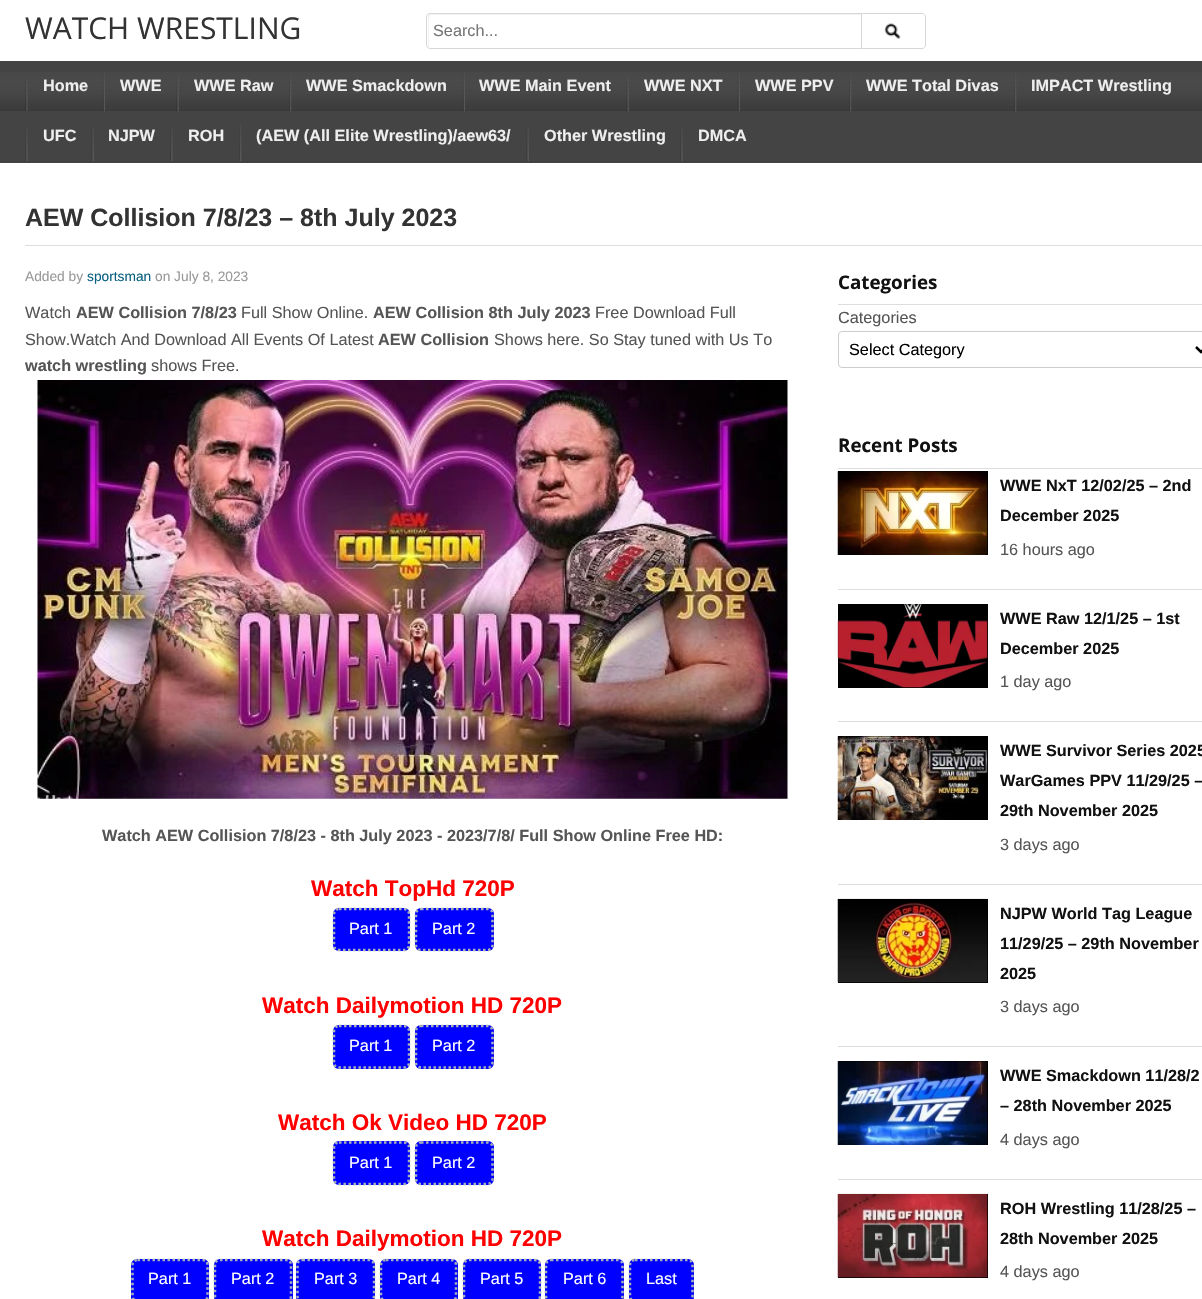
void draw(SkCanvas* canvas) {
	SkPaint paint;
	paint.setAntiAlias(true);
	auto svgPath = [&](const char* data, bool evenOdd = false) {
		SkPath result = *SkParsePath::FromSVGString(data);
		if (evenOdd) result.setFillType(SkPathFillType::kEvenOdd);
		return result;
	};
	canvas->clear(0xffffffff);
	SkFont f1(fontMgr->matchFamilyStyle("Open Sans", SkFontStyle::Normal()), 30);
	f1.setSubpixel(true);
	paint.setColor(0xff333333);
	canvas->drawString("WATCH WRESTLING", 25, 39, f1, paint);
	paint.setColor(0xfff2f2f2);
	canvas->drawPath(svgPath("M431 15H861H863C862 15 861 14 860 14H430C429 14 428 15 428 16V46C428 46 429 47 429 48V27C429 26 428 15 431 15Z"), paint);
	paint.setStroke(true);
	paint.setStrokeWidth(1);
	paint.setColor(0xffd7d7d7);
	canvas->drawRoundRect(SkRect::MakeXYWH(426.5, 13.5, 437, 35), 3.5, 3.5, paint);
	SkFont f2(fontMgr->matchFamilyStyle("Liberation Sans", SkFontStyle::Normal()), 16.25);
	f2.setSubpixel(true);
	paint.setStroke(false);
	paint.setColor(0xff757575);
	canvas->drawString("Search...", 433, 36, f2, paint);
	paint.setColor(0xffffffff);
	canvas->drawPath(svgPath("M861.5 13.5H922C924 13.5 925.5 15 925.5 17V45C925.5 47 924 48.5 922 48.5H861.5Z"), paint);
	paint.setStroke(true);
	paint.setColor(0xffd7d7d7);
	canvas->drawPath(svgPath("M861.5 13.5H922C924 13.5 925.5 15 925.5 17V45C925.5 47 924 48.5 922 48.5H861.5Z"), paint);
	canvas->drawImageRect(SkImages::DeferredFromEncodedData(SkData::MakeFromFileName("img1.png")), SkRect::MakeXYWH(884, 23, 17, 16), SkSamplingOptions());
	paint.setStroke(false);
	paint.setColor(0xff444444);
	canvas->drawRect(SkRect::MakeXYWH(0, 61, 1202, 102), paint);
	canvas->drawImageRect(SkImages::DeferredFromEncodedData(SkData::MakeFromFileName("img2.png")), SkRect::MakeXYWH(0, 72, 1202, 39), SkSamplingOptions());
	paint.setColor(0xff404040);
	canvas->drawRect(SkRect::MakeXYWH(0, 161, 1202, 1), paint);
	canvas->drawImageRect(SkImages::DeferredFromEncodedData(SkData::MakeFromFileName("img3.png")), SkRect::MakeXYWH(25, 79, 3, 32), SkSamplingOptions());
	SkFont f3(fontMgr->matchFamilyStyle("Liberation Sans", SkFontStyle::Bold()), 16.25);
	f3.setSubpixel(true);
	paint.setColor(0xffeeeeee);
	canvas->drawString("Home", 43, 91, f3, paint);
	canvas->drawImageRect(SkImages::DeferredFromEncodedData(SkData::MakeFromFileName("img4.png")), SkRect::MakeXYWH(102, 72, 3, 40), SkSamplingOptions());
	canvas->drawString("WWE", 120, 91, f3, paint);
	canvas->drawImageRect(SkImages::DeferredFromEncodedData(SkData::MakeFromFileName("img5.png")), SkRect::MakeXYWH(176, 76, 3, 36), SkSamplingOptions());
	canvas->drawString("WWE Raw", 194, 91, f3, paint);
	canvas->drawImageRect(SkImages::DeferredFromEncodedData(SkData::MakeFromFileName("img6.png")), SkRect::MakeXYWH(289, 73, 3, 39), SkSamplingOptions());
	canvas->drawString("WWE Smackdown", 306, 91, f3, paint);
	canvas->drawImageRect(SkImages::DeferredFromEncodedData(SkData::MakeFromFileName("img4.png")), SkRect::MakeXYWH(462, 72, 3, 40), SkSamplingOptions());
	canvas->drawString("WWE Main Event", 479, 91, f3, paint);
	canvas->drawImageRect(SkImages::DeferredFromEncodedData(SkData::MakeFromFileName("img5.png")), SkRect::MakeXYWH(626, 76, 3, 36), SkSamplingOptions());
	canvas->drawString("WWE NXT", 644, 91, f3, paint);
	canvas->drawImageRect(SkImages::DeferredFromEncodedData(SkData::MakeFromFileName("img4.png")), SkRect::MakeXYWH(737, 72, 3, 40), SkSamplingOptions());
	canvas->drawString("WWE PPV", 755, 91, f3, paint);
	canvas->drawImageRect(SkImages::DeferredFromEncodedData(SkData::MakeFromFileName("img6.png")), SkRect::MakeXYWH(849, 73, 3, 39), SkSamplingOptions());
	canvas->drawString("WWE Total Divas", 866, 91, f3, paint);
	canvas->drawImageRect(SkImages::DeferredFromEncodedData(SkData::MakeFromFileName("img6.png")), SkRect::MakeXYWH(1014, 73, 3, 39), SkSamplingOptions());
	canvas->drawString("IMPACT Wrestling", 1031, 91, f3, paint);
	canvas->drawImageRect(SkImages::DeferredFromEncodedData(SkData::MakeFromFileName("img7.png")), SkRect::MakeXYWH(25, 128, 3, 33), SkSamplingOptions());
	canvas->drawString("UFC", 43, 141, f3, paint);
	canvas->drawImageRect(SkImages::DeferredFromEncodedData(SkData::MakeFromFileName("img8.png")), SkRect::MakeXYWH(91, 126, 3, 36), SkSamplingOptions());
	canvas->drawString("NJPW", 108, 141, f3, paint);
	canvas->drawImageRect(SkImages::DeferredFromEncodedData(SkData::MakeFromFileName("img7.png")), SkRect::MakeXYWH(170, 128, 3, 33), SkSamplingOptions());
	canvas->drawString("ROH", 188, 141, f3, paint);
	canvas->drawImageRect(SkImages::DeferredFromEncodedData(SkData::MakeFromFileName("img9.png")), SkRect::MakeXYWH(239, 123, 3, 39), SkSamplingOptions());
	canvas->drawString("(AEW (All Elite Wrestling)/aew63/", 256, 141, f3, paint);
	canvas->drawImageRect(SkImages::DeferredFromEncodedData(SkData::MakeFromFileName("img8.png")), SkRect::MakeXYWH(526, 126, 3, 36), SkSamplingOptions());
	canvas->drawString("Other Wrestling", 544, 141, f3, paint);
	canvas->drawImageRect(SkImages::DeferredFromEncodedData(SkData::MakeFromFileName("img7.png")), SkRect::MakeXYWH(680, 128, 3, 33), SkSamplingOptions());
	canvas->drawString("DMCA", 698, 141, f3, paint);
	paint.setColor(0xffdddddd);
	canvas->drawRect(SkRect::MakeXYWH(25, 245, 1177, 1), paint);
	SkFont f4(fontMgr->matchFamilyStyle("Liberation Sans", SkFontStyle::Bold()), 25);
	f4.setSubpixel(true);
	paint.setColor(0xff333333);
	canvas->drawString("AEW Collision 7/8/23 – 8th July 2023", 25, 226, f4, paint);
	SkFont f5(fontMgr->matchFamilyStyle("Liberation Sans", SkFontStyle::Normal()), 13.75);
	f5.setSubpixel(true);
	paint.setColor(0xff999999);
	canvas->drawString("Added by", 25, 281, f5, paint);
	paint.setColor(0xff086081);
	canvas->drawString("sportsman", 87, 281, f5, paint);
	paint.setColor(0xff999999);
	canvas->drawString("on July 8, 2023", 155, 281, f5, paint);
	paint.setColor(0xff555555);
	canvas->drawString("Watch", 25, 318, f2, paint);
	canvas->drawString("AEW Collision 7/8/23", 76, 318, f3, paint);
	canvas->drawString("Full Show Online.", 241, 318, f2, paint);
	canvas->drawString("AEW Collision 8th July 2023", 373, 318, f3, paint);
	canvas->drawString("Free Download Full", 595, 318, f2, paint);
	canvas->drawString("Show.Watch And Download All Events Of Latest", 25, 345, f2, paint);
	canvas->drawString("AEW Collision", 378, 345, f3, paint);
	canvas->drawString("Shows here. So Stay tuned with Us To", 494, 345, f2, paint);
	canvas->drawString("watch wrestling", 25, 371, f3, paint);
	canvas->drawString("shows Free.", 151, 371, f2, paint);
	canvas->drawImageRect(SkImages::DeferredFromEncodedData(SkData::MakeFromFileName("img10.png")), SkRect::MakeXYWH(37, 380, 751, 419), SkSamplingOptions());
	canvas->drawString("Watch AEW Collision 7/8/23 - 8th July 2023 - 2023/7/8/ Full Show Online Free HD:", 102, 841, f3, paint);
	SkFont f6(fontMgr->matchFamilyStyle("Liberation Sans", SkFontStyle::Bold()), 22.5);
	f6.setSubpixel(true);
	paint.setColor(0xffff0000);
	canvas->drawString("Watch TopHd 720P", 311, 896, f6, paint);
	paint.setColor(0xff0000ff);
	canvas->drawRoundRect(SkRect::MakeXYWH(333, 908, 77, 43), 6, 6, paint);
	paint.setStroke(true);
	paint.setStrokeWidth(2.5);
	paint.setColor(0xffa7afb8);
	paint.setPathEffect(SkDashPathEffect::Make({{2.5f, 2.5f}}, 0));
	canvas->drawPath(svgPath("M339 909H404C406.5 909 409 911 409 914V945C409 948 406.5 950 404 950H339C336 950 334 948 334 945V914C334 911 336 909 339 909Z"), paint);
	paint.setPathEffect(nullptr);
	paint.setStroke(false);
	paint.setColor(0xffffffff);
	canvas->drawString("Part 1", 349, 934, f2, paint);
	paint.setColor(0xff0000ff);
	canvas->drawRoundRect(SkRect::MakeXYWH(415, 908, 79, 43), 6, 6, paint);
	paint.setStroke(true);
	paint.setColor(0xffa7afb8);
	paint.setPathEffect(SkDashPathEffect::Make({{2.5f, 2.5f}}, 0));
	canvas->drawPath(svgPath("M421 909H487.5C490.5 909 492.5 911 492.5 914V945C492.5 948 490.5 950 487.5 950H421C418.5 950 416 948 416 945V914C416 911 418.5 909 421 909Z"), paint);
	paint.setPathEffect(nullptr);
	paint.setStroke(false);
	paint.setColor(0xffffffff);
	canvas->drawString("Part 2", 432, 934, f2, paint);
	paint.setColor(0xffff0000);
	canvas->drawString("Watch Dailymotion HD 720P", 262, 1013, f6, paint);
	paint.setColor(0xff0000ff);
	canvas->drawRoundRect(SkRect::MakeXYWH(333, 1025, 77, 44), 6, 6, paint);
	paint.setStroke(true);
	paint.setColor(0xffa7afb8);
	paint.setPathEffect(SkDashPathEffect::Make({{2.5f, 2.5f}}, 0));
	canvas->drawPath(svgPath("M339 1026H404C406.5 1026 409 1028.5 409 1031V1062.5C409 1065.5 406.5 1067.5 404 1067.5H339C336 1067.5 334 1065.5 334 1062.5V1031C334 1028.5 336 1026 339 1026Z"), paint);
	paint.setPathEffect(nullptr);
	paint.setStroke(false);
	paint.setColor(0xffffffff);
	canvas->drawString("Part 1", 349, 1051, f2, paint);
	paint.setColor(0xff0000ff);
	canvas->drawRoundRect(SkRect::MakeXYWH(415, 1025, 79, 44), 6, 6, paint);
	paint.setStroke(true);
	paint.setColor(0xffa7afb8);
	paint.setPathEffect(SkDashPathEffect::Make({{2.5f, 2.5f}}, 0));
	canvas->drawPath(svgPath("M421 1026H487.5C490.5 1026 492.5 1028.5 492.5 1031V1062.5C492.5 1065.5 490.5 1067.5 487.5 1067.5H421C418.5 1067.5 416 1065.5 416 1062.5V1031C416 1028.5 418.5 1026 421 1026Z"), paint);
	paint.setPathEffect(nullptr);
	paint.setStroke(false);
	paint.setColor(0xffffffff);
	canvas->drawString("Part 2", 432, 1051, f2, paint);
	paint.setColor(0xffff0000);
	canvas->drawString("Watch Ok Video HD 720P", 278, 1130, f6, paint);
	paint.setColor(0xff0000ff);
	canvas->drawRoundRect(SkRect::MakeXYWH(333, 1141, 77, 44), 6, 6, paint);
	paint.setStroke(true);
	paint.setColor(0xffa7afb8);
	paint.setPathEffect(SkDashPathEffect::Make({{2.5f, 2.5f}}, 0));
	canvas->drawPath(svgPath("M339 1142.5H404C406.5 1142.5 409 1144.5 409 1147.5V1179C409 1181.5 406.5 1184 404 1184H339C336 1184 334 1181.5 334 1179V1147.5C334 1144.5 336 1142.5 339 1142.5Z"), paint);
	paint.setPathEffect(nullptr);
	paint.setStroke(false);
	paint.setColor(0xffffffff);
	canvas->drawString("Part 1", 349, 1168, f2, paint);
	paint.setColor(0xff0000ff);
	canvas->drawRoundRect(SkRect::MakeXYWH(415, 1141, 79, 44), 6, 6, paint);
	paint.setStroke(true);
	paint.setColor(0xffa7afb8);
	paint.setPathEffect(SkDashPathEffect::Make({{2.5f, 2.5f}}, 0));
	canvas->drawPath(svgPath("M421 1142.5H487.5C490.5 1142.5 492.5 1144.5 492.5 1147.5V1179C492.5 1181.5 490.5 1184 487.5 1184H421C418.5 1184 416 1181.5 416 1179V1147.5C416 1144.5 418.5 1142.5 421 1142.5Z"), paint);
	paint.setPathEffect(nullptr);
	paint.setStroke(false);
	paint.setColor(0xffffffff);
	canvas->drawString("Part 2", 432, 1168, f2, paint);
	paint.setColor(0xffff0000);
	canvas->drawString("Watch Dailymotion HD 720P", 262, 1246, f6, paint);
	paint.setColor(0xff0000ff);
	canvas->drawRoundRect(SkRect::MakeXYWH(131, 1259, 78, 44), 6, 6, paint);
	paint.setStroke(true);
	paint.setColor(0xffa7afb8);
	paint.setPathEffect(SkDashPathEffect::Make({{2.5f, 2.5f}}, 0));
	canvas->drawPath(svgPath("M137.5 1260H202.5C205.5 1260 207.5 1262 207.5 1265V1296C207.5 1299 205.5 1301 202.5 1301H137.5C134.5 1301 132.5 1299 132.5 1296V1265C132.5 1262 134.5 1260 137.5 1260Z"), paint);
	paint.setPathEffect(nullptr);
	paint.setStroke(false);
	paint.setColor(0xffffffff);
	canvas->drawString("Part 1", 148, 1284, f2, paint);
	paint.setColor(0xff0000ff);
	canvas->drawRoundRect(SkRect::MakeXYWH(214, 1259, 79, 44), 6, 6, paint);
	paint.setStroke(true);
	paint.setColor(0xffa7afb8);
	paint.setPathEffect(SkDashPathEffect::Make({{2.5f, 2.5f}}, 0));
	canvas->drawPath(svgPath("M220 1260H286C289 1260 291 1262 291 1265V1296C291 1299 289 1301 286 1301H220C217 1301 215 1299 215 1296V1265C215 1262 217 1260 220 1260Z"), paint);
	paint.setPathEffect(nullptr);
	paint.setStroke(false);
	paint.setColor(0xffffffff);
	canvas->drawString("Part 2", 231, 1284, f2, paint);
	paint.setColor(0xff0000ff);
	canvas->drawRoundRect(SkRect::MakeXYWH(296, 1259, 79, 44), 6, 6, paint);
	paint.setStroke(true);
	paint.setColor(0xffa7afb8);
	paint.setPathEffect(SkDashPathEffect::Make({{2.5f, 2.5f}}, 0));
	canvas->drawPath(svgPath("M302.5 1260H369C371.5 1260 374 1262 374 1265V1296C374 1299 371.5 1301 369 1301H302.5C299.5 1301 297.5 1299 297.5 1296V1265C297.5 1262 299.5 1260 302.5 1260Z"), paint);
	paint.setPathEffect(nullptr);
	paint.setStroke(false);
	paint.setColor(0xffffffff);
	canvas->drawString("Part 3", 314, 1284, f2, paint);
	paint.setColor(0xff0000ff);
	canvas->drawRoundRect(SkRect::MakeXYWH(380, 1259, 78, 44), 6, 6, paint);
	paint.setStroke(true);
	paint.setColor(0xffa7afb8);
	paint.setPathEffect(SkDashPathEffect::Make({{2.5f, 2.5f}}, 0));
	canvas->drawPath(svgPath("M386 1260H451C454 1260 456 1262 456 1265V1296C456 1299 454 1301 451 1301H386C383.5 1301 381 1299 381 1296V1265C381 1262 383.5 1260 386 1260Z"), paint);
	paint.setPathEffect(nullptr);
	paint.setStroke(false);
	paint.setColor(0xffffffff);
	canvas->drawString("Part 4", 397, 1284, f2, paint);
	paint.setColor(0xff0000ff);
	canvas->drawRoundRect(SkRect::MakeXYWH(463, 1259, 78, 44), 6, 6, paint);
	paint.setStroke(true);
	paint.setColor(0xffa7afb8);
	paint.setPathEffect(SkDashPathEffect::Make({{2.5f, 2.5f}}, 0));
	canvas->drawPath(svgPath("M469 1260H535C538 1260 540 1262 540 1265V1296C540 1299 538 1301 535 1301H469C466 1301 464 1299 464 1296V1265C464 1262 466 1260 469 1260Z"), paint);
	paint.setPathEffect(nullptr);
	paint.setStroke(false);
	paint.setColor(0xffffffff);
	canvas->drawString("Part 5", 480, 1284, f2, paint);
	paint.setColor(0xff0000ff);
	canvas->drawRoundRect(SkRect::MakeXYWH(545, 1259, 79, 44), 6, 6, paint);
	paint.setStroke(true);
	paint.setColor(0xffa7afb8);
	paint.setPathEffect(SkDashPathEffect::Make({{2.5f, 2.5f}}, 0));
	canvas->drawPath(svgPath("M551 1260H617.5C620.5 1260 622.5 1262 622.5 1265V1296C622.5 1299 620.5 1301 617.5 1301H551C548.5 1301 546 1299 546 1296V1265C546 1262 548.5 1260 551 1260Z"), paint);
	paint.setPathEffect(nullptr);
	paint.setStroke(false);
	paint.setColor(0xffffffff);
	canvas->drawString("Part 6", 563, 1284, f2, paint);
	paint.setColor(0xff0000ff);
	canvas->drawRoundRect(SkRect::MakeXYWH(629, 1259, 65, 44), 6, 6, paint);
	paint.setStroke(true);
	paint.setColor(0xffa7afb8);
	paint.setPathEffect(SkDashPathEffect::Make({{2.5f, 2.5f}}, 0));
	canvas->drawPath(svgPath("M635 1260H687.5C690.5 1260 692.5 1262 692.5 1265V1296C692.5 1299 690.5 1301 687.5 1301H635C632 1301 630 1299 630 1296V1265C630 1262 632 1260 635 1260Z"), paint);
	paint.setPathEffect(nullptr);
	paint.setStroke(false);
	paint.setColor(0xffffffff);
	canvas->drawString("Last", 646, 1284, f2, paint);
	paint.setColor(0xffdddddd);
	canvas->drawRect(SkRect::MakeXYWH(838, 304, 364, 1), paint);
	SkFont f7(fontMgr->matchFamilyStyle("Open Sans", SkFontStyle::Bold()), 18.75);
	f7.setSubpixel(true);
	paint.setColor(0xff111111);
	canvas->drawString("Categories", 838, 289, f7, paint);
	paint.setColor(0xff555555);
	canvas->drawString("Categories", 838, 323, f2, paint);
	paint.setStroke(true);
	paint.setStrokeWidth(1);
	paint.setColor(0xffcccccc);
	canvas->drawRoundRect(SkRect::MakeXYWH(838.5, 331.5, 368, 36), 3.5, 3.5, paint);
	paint.setStrokeWidth(2.5);
	paint.setColor(0xff000000);
	canvas->drawPath(svgPath("M1196 347L1201 352L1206 347"), paint);
	paint.setStroke(false);
	canvas->drawString("Select Category", 849, 355, f2, paint);
	paint.setColor(0xffdddddd);
	canvas->drawRect(SkRect::MakeXYWH(838, 468, 364, 1), paint);
	paint.setColor(0xff111111);
	canvas->drawString("Recent Posts", 838, 452, f7, paint);
	paint.setColor(0xffdddddd);
	canvas->drawRect(SkRect::MakeXYWH(838, 589, 364, 1), paint);
	paint.setColor(0xff000000);
	canvas->drawRect(SkRect::MakeXYWH(838, 471, 150, 84), paint);
	canvas->drawImageRect(SkImages::DeferredFromEncodedData(SkData::MakeFromFileName("img11.png")), SkRect::MakeXYWH(837, 471, 151, 84), SkSamplingOptions());
	paint.setColor(0xff111111);
	canvas->drawString("WWE NxT 12/02/25 – 2nd", 1000, 491, f3, paint);
	canvas->drawString("December 2025", 1000, 521, f3, paint);
	paint.setColor(0xff555555);
	canvas->drawString("16 hours ago", 1000, 555, f2, paint);
	paint.setColor(0xffdddddd);
	canvas->drawRect(SkRect::MakeXYWH(838, 721, 364, 1), paint);
	paint.setColor(0xff000000);
	canvas->drawRect(SkRect::MakeXYWH(838, 604, 150, 84), paint);
	canvas->drawImageRect(SkImages::DeferredFromEncodedData(SkData::MakeFromFileName("img12.png")), SkRect::MakeXYWH(837, 604, 151, 84), SkSamplingOptions());
	paint.setColor(0xff111111);
	canvas->drawString("WWE Raw 12/1/25 – 1st", 1000, 624, f3, paint);
	canvas->drawString("December 2025", 1000, 654, f3, paint);
	paint.setColor(0xff555555);
	canvas->drawString("1 day ago", 1000, 687, f2, paint);
	paint.setColor(0xffdddddd);
	canvas->drawRect(SkRect::MakeXYWH(838, 884, 364, 1), paint);
	paint.setColor(0xff000000);
	canvas->drawRect(SkRect::MakeXYWH(838, 736, 150, 84), paint);
	canvas->drawImageRect(SkImages::DeferredFromEncodedData(SkData::MakeFromFileName("img13.png")), SkRect::MakeXYWH(837, 736, 151, 84), SkSamplingOptions());
	paint.setColor(0xff111111);
	canvas->drawString("WWE Survivor Series 2025", 1000, 756, f3, paint);
	canvas->drawString("WarGames PPV 11/29/25 –", 1000, 786, f3, paint);
	canvas->drawString("29th November 2025", 1000, 816, f3, paint);
	paint.setColor(0xff555555);
	canvas->drawString("3 days ago", 1000, 850, f2, paint);
	paint.setColor(0xffdddddd);
	canvas->drawRect(SkRect::MakeXYWH(838, 1046, 364, 1), paint);
	paint.setColor(0xff000000);
	canvas->drawRect(SkRect::MakeXYWH(838, 899, 150, 84), paint);
	canvas->drawImageRect(SkImages::DeferredFromEncodedData(SkData::MakeFromFileName("img14.png")), SkRect::MakeXYWH(837, 898, 151, 85), SkSamplingOptions());
	paint.setColor(0xff111111);
	canvas->drawString("NJPW World Tag League", 1000, 919, f3, paint);
	canvas->drawString("11/29/25 – 29th November", 1000, 949, f3, paint);
	canvas->drawString("2025", 1000, 979, f3, paint);
	paint.setColor(0xff555555);
	canvas->drawString("3 days ago", 1000, 1012, f2, paint);
	paint.setColor(0xffdddddd);
	canvas->drawRect(SkRect::MakeXYWH(838, 1179, 364, 1), paint);
	paint.setColor(0xff000000);
	canvas->drawRect(SkRect::MakeXYWH(838, 1061, 150, 84), paint);
	canvas->drawImageRect(SkImages::DeferredFromEncodedData(SkData::MakeFromFileName("img15.png")), SkRect::MakeXYWH(837, 1061, 151, 84), SkSamplingOptions());
	paint.setColor(0xff111111);
	canvas->drawString("WWE Smackdown 11/28/2", 1000, 1081, f3, paint);
	canvas->drawString("– 28th November 2025", 1000, 1111, f3, paint);
	paint.setColor(0xff555555);
	canvas->drawString("4 days ago", 1000, 1145, f2, paint);
	paint.setColor(0xff000000);
	canvas->drawRect(SkRect::MakeXYWH(838, 1194, 150, 84), paint);
	canvas->drawImageRect(SkImages::DeferredFromEncodedData(SkData::MakeFromFileName("img16.png")), SkRect::MakeXYWH(837, 1193, 151, 85), SkSamplingOptions());
	paint.setColor(0xff111111);
	canvas->drawString("ROH Wrestling 11/28/25 –", 1000, 1214, f3, paint);
	canvas->drawString("28th November 2025", 1000, 1244, f3, paint);
	paint.setColor(0xff555555);
	canvas->drawString("4 days ago", 1000, 1277, f2, paint);
}
